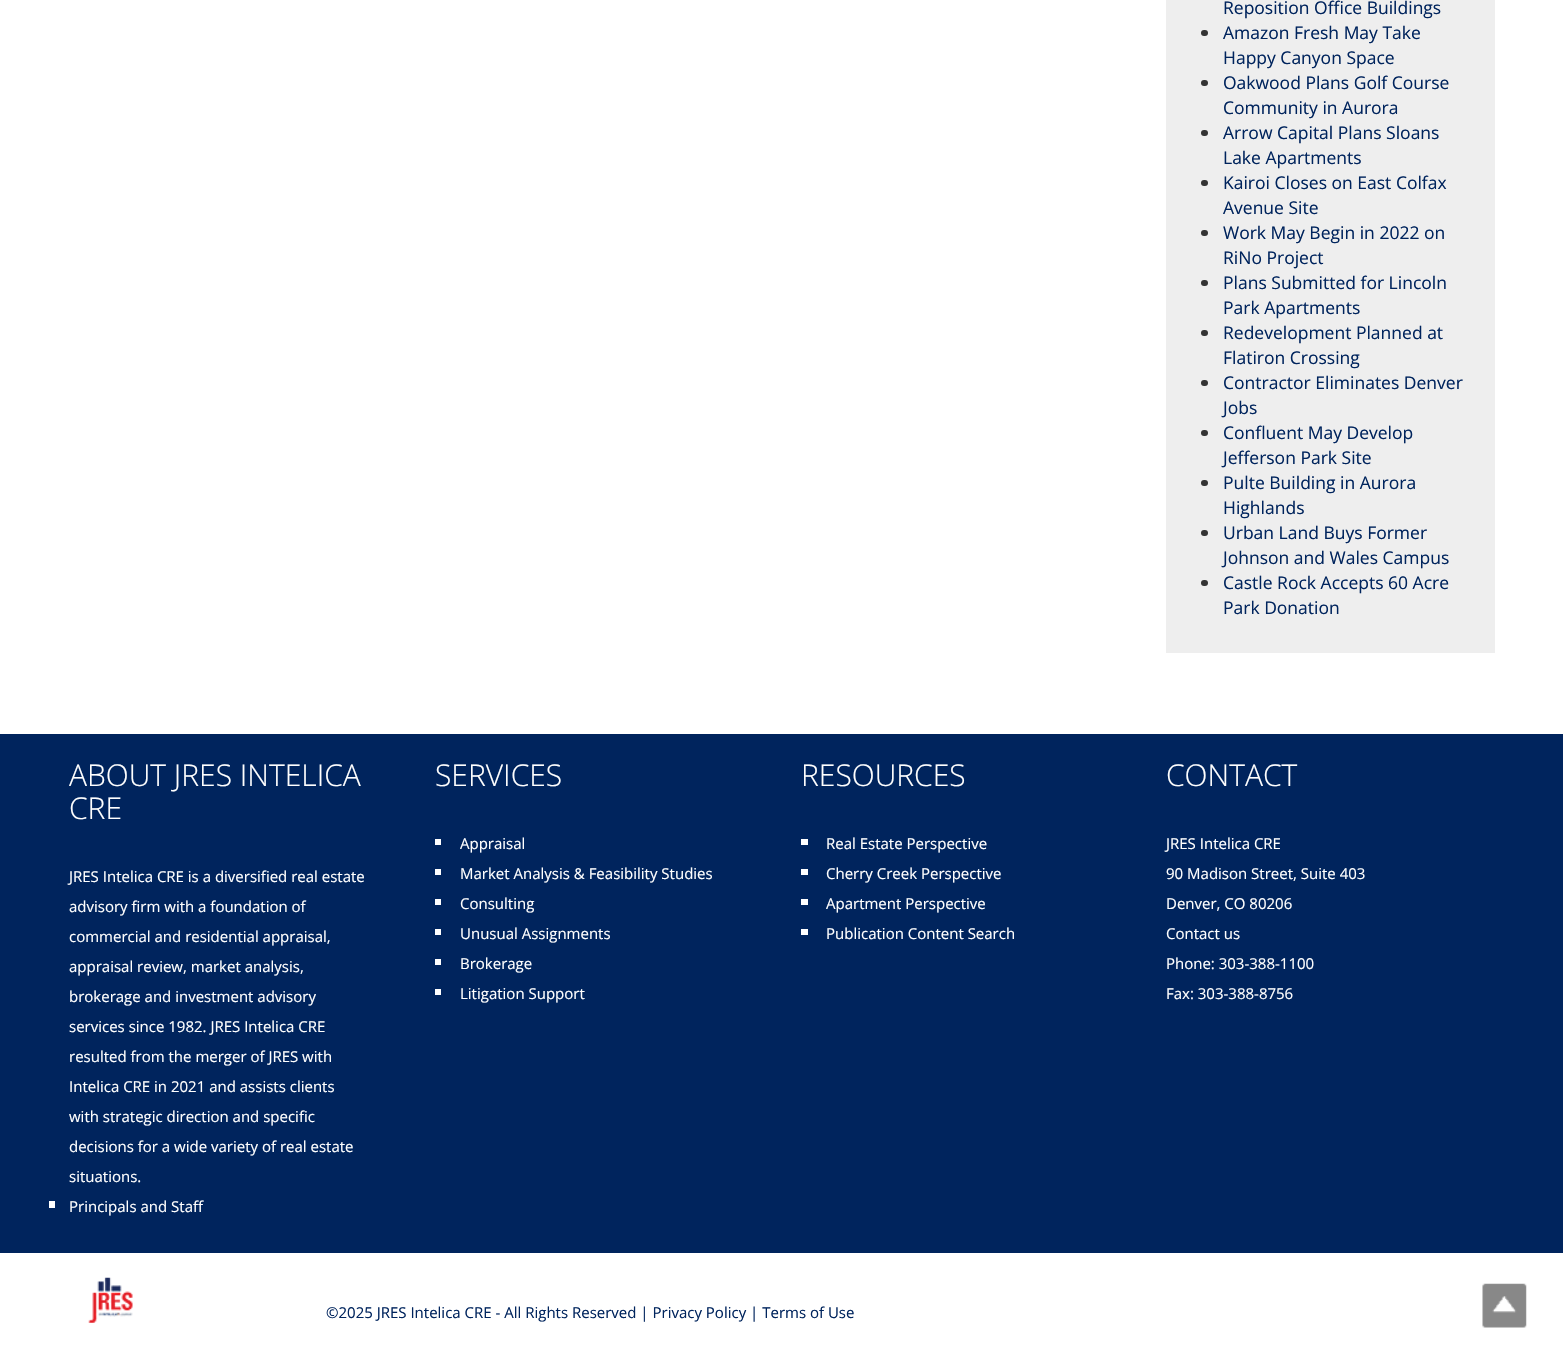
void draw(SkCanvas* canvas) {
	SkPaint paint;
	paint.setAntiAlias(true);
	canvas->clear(0xffffffff);
	paint.setColor(0xffeeeeee);
	canvas->drawRect(SkRect::MakeXYWH(1166, 0, 329, 653), paint);
	SkFont f1(fontMgr->matchFamilyStyle("Open Sans", SkFontStyle::Normal()), 17.5);
	f1.setSubpixel(true);
	paint.setColor(0xff00245d);
	canvas->drawString("Reposition Office Buildings", 1223, 14, f1, paint);
	paint.setColor(0xff333333);
	canvas->drawRoundRect(SkRect::MakeXYWH(1201, 30, 7, 6), 3, 3, paint);
	paint.setColor(0xff00245d);
	canvas->drawString("Amazon Fresh May Take", 1223, 39, f1, paint);
	canvas->drawString("Happy Canyon Space", 1223, 64, f1, paint);
	paint.setColor(0xff333333);
	canvas->drawRoundRect(SkRect::MakeXYWH(1201, 80, 7, 6), 3, 3, paint);
	paint.setColor(0xff00245d);
	canvas->drawString("Oakwood Plans Golf Course", 1223, 89, f1, paint);
	canvas->drawString("Community in Aurora", 1223, 114, f1, paint);
	paint.setColor(0xff333333);
	canvas->drawRoundRect(SkRect::MakeXYWH(1201, 130, 7, 6), 3, 3, paint);
	paint.setColor(0xff00245d);
	canvas->drawString("Arrow Capital Plans Sloans", 1223, 139, f1, paint);
	canvas->drawString("Lake Apartments", 1223, 164, f1, paint);
	paint.setColor(0xff333333);
	canvas->drawRoundRect(SkRect::MakeXYWH(1201, 180, 7, 6), 3, 3, paint);
	paint.setColor(0xff00245d);
	canvas->drawString("Kairoi Closes on East Colfax", 1223, 189, f1, paint);
	canvas->drawString("Avenue Site", 1223, 214, f1, paint);
	paint.setColor(0xff333333);
	canvas->drawRoundRect(SkRect::MakeXYWH(1201, 230, 7, 6), 3, 3, paint);
	paint.setColor(0xff00245d);
	canvas->drawString("Work May Begin in 2022 on", 1223, 239, f1, paint);
	canvas->drawString("RiNo Project", 1223, 264, f1, paint);
	paint.setColor(0xff333333);
	canvas->drawRoundRect(SkRect::MakeXYWH(1201, 280, 7, 6), 3, 3, paint);
	paint.setColor(0xff00245d);
	canvas->drawString("Plans Submitted for Lincoln", 1223, 289, f1, paint);
	canvas->drawString("Park Apartments", 1223, 314, f1, paint);
	paint.setColor(0xff333333);
	canvas->drawRoundRect(SkRect::MakeXYWH(1201, 330, 7, 6), 3, 3, paint);
	paint.setColor(0xff00245d);
	canvas->drawString("Redevelopment Planned at", 1223, 339, f1, paint);
	canvas->drawString("Flatiron Crossing", 1223, 364, f1, paint);
	paint.setColor(0xff333333);
	canvas->drawRoundRect(SkRect::MakeXYWH(1201, 380, 7, 6), 3, 3, paint);
	paint.setColor(0xff00245d);
	canvas->drawString("Contractor Eliminates Denver", 1223, 389, f1, paint);
	canvas->drawString("Jobs", 1223, 414, f1, paint);
	paint.setColor(0xff333333);
	canvas->drawRoundRect(SkRect::MakeXYWH(1201, 430, 7, 6), 3, 3, paint);
	paint.setColor(0xff00245d);
	canvas->drawString("Confluent May Develop", 1223, 439, f1, paint);
	canvas->drawString("Jefferson Park Site", 1223, 464, f1, paint);
	paint.setColor(0xff333333);
	canvas->drawRoundRect(SkRect::MakeXYWH(1201, 480, 7, 6), 3, 3, paint);
	paint.setColor(0xff00245d);
	canvas->drawString("Pulte Building in Aurora", 1223, 489, f1, paint);
	canvas->drawString("Highlands", 1223, 514, f1, paint);
	paint.setColor(0xff333333);
	canvas->drawRoundRect(SkRect::MakeXYWH(1201, 530, 7, 6), 3, 3, paint);
	paint.setColor(0xff00245d);
	canvas->drawString("Urban Land Buys Former", 1223, 539, f1, paint);
	canvas->drawString("Johnson and Wales Campus", 1223, 564, f1, paint);
	paint.setColor(0xff333333);
	canvas->drawRoundRect(SkRect::MakeXYWH(1201, 580, 7, 6), 3, 3, paint);
	paint.setColor(0xff00245d);
	canvas->drawString("Castle Rock Accepts 60 Acre", 1223, 589, f1, paint);
	canvas->drawString("Park Donation", 1223, 614, f1, paint);
	canvas->drawRect(SkRect::MakeXYWH(0, 734, 1563, 519), paint);
	SkFont f2(fontMgr->matchFamilyStyle("Open Sans", SkFontStyle(300, SkFontStyle::kNormal_Width, SkFontStyle::kUpright_Slant)), 30);
	f2.setSubpixel(true);
	paint.setColor(0xffffffff);
	canvas->drawString("ABOUT JRES INTELICA", 69, 786, f2, paint);
	canvas->drawString("CRE", 69, 819, f2, paint);
	SkFont f3(fontMgr->matchFamilyStyle("Open Sans", SkFontStyle::Normal()), 15);
	f3.setSubpixel(true);
	canvas->drawString("JRES Intelica CRE is a diversified real estate", 69, 882, f3, paint);
	canvas->drawString("advisory firm with a foundation of", 69, 912, f3, paint);
	canvas->drawString("commercial and residential appraisal,", 69, 942, f3, paint);
	canvas->drawString("appraisal review, market analysis,", 69, 972, f3, paint);
	canvas->drawString("brokerage and investment advisory", 69, 1002, f3, paint);
	canvas->drawString("services since 1982. JRES Intelica CRE", 69, 1032, f3, paint);
	canvas->drawString("resulted from the merger of JRES with", 69, 1062, f3, paint);
	canvas->drawString("Intelica CRE in 2021 and assists clients", 69, 1092, f3, paint);
	canvas->drawString("with strategic direction and specific", 69, 1122, f3, paint);
	canvas->drawString("decisions for a wide variety of real estate", 69, 1152, f3, paint);
	canvas->drawString("situations.", 69, 1182, f3, paint);
	canvas->drawRect(SkRect::MakeXYWH(49, 1201, 6, 7), paint);
	canvas->drawString("Principals and Staff", 69, 1212, f3, paint);
	canvas->drawString("SERVICES", 435, 786, f2, paint);
	canvas->drawRect(SkRect::MakeXYWH(435, 839, 6, 6), paint);
	canvas->drawString("Appraisal", 460, 849, f3, paint);
	canvas->drawRect(SkRect::MakeXYWH(435, 869, 6, 6), paint);
	canvas->drawString("Market Analysis & Feasibility Studies", 460, 879, f3, paint);
	canvas->drawRect(SkRect::MakeXYWH(435, 899, 6, 6), paint);
	canvas->drawString("Consulting", 460, 909, f3, paint);
	canvas->drawRect(SkRect::MakeXYWH(435, 929, 6, 6), paint);
	canvas->drawString("Unusual Assignments", 460, 939, f3, paint);
	canvas->drawRect(SkRect::MakeXYWH(435, 959, 6, 6), paint);
	canvas->drawString("Brokerage", 460, 969, f3, paint);
	canvas->drawRect(SkRect::MakeXYWH(435, 989, 6, 6), paint);
	canvas->drawString("Litigation Support", 460, 999, f3, paint);
	canvas->drawString("RESOURCES", 801, 786, f2, paint);
	canvas->drawRect(SkRect::MakeXYWH(801, 839, 7, 6), paint);
	canvas->drawString("Real Estate Perspective", 826, 849, f3, paint);
	canvas->drawRect(SkRect::MakeXYWH(801, 869, 7, 6), paint);
	canvas->drawString("Cherry Creek Perspective", 826, 879, f3, paint);
	canvas->drawRect(SkRect::MakeXYWH(801, 899, 7, 6), paint);
	canvas->drawString("Apartment Perspective", 826, 909, f3, paint);
	canvas->drawRect(SkRect::MakeXYWH(801, 929, 7, 6), paint);
	canvas->drawString("Publication Content Search", 826, 939, f3, paint);
	canvas->drawString("CONTACT", 1166, 786, f2, paint);
	canvas->drawString("JRES Intelica CRE", 1166, 849, f3, paint);
	canvas->drawString("90 Madison Street, Suite 403", 1166, 879, f3, paint);
	canvas->drawString("Denver, CO 80206", 1166, 909, f3, paint);
	canvas->drawString("Contact us", 1166, 939, f3, paint);
	canvas->drawString("Phone: 303-388-1100", 1166, 969, f3, paint);
	canvas->drawString("Fax: 303-388-8756", 1166, 999, f3, paint);
	canvas->drawImageRect(SkImages::DeferredFromEncodedData(SkData::MakeFromFileName("img1.png")), SkRect::MakeXYWH(88, 1277, 45, 46), SkSamplingOptions());
	paint.setColor(0xff00245d);
	canvas->drawString("©2025 JRES Intelica CRE - All Rights Reserved | Privacy Policy | Terms of Use", 326, 1318, f3, paint);
	canvas->drawImageRect(SkImages::DeferredFromEncodedData(SkData::MakeFromFileName("img2.png")), SkRect::MakeXYWH(1482, 1283, 45, 45), SkSamplingOptions());
}
